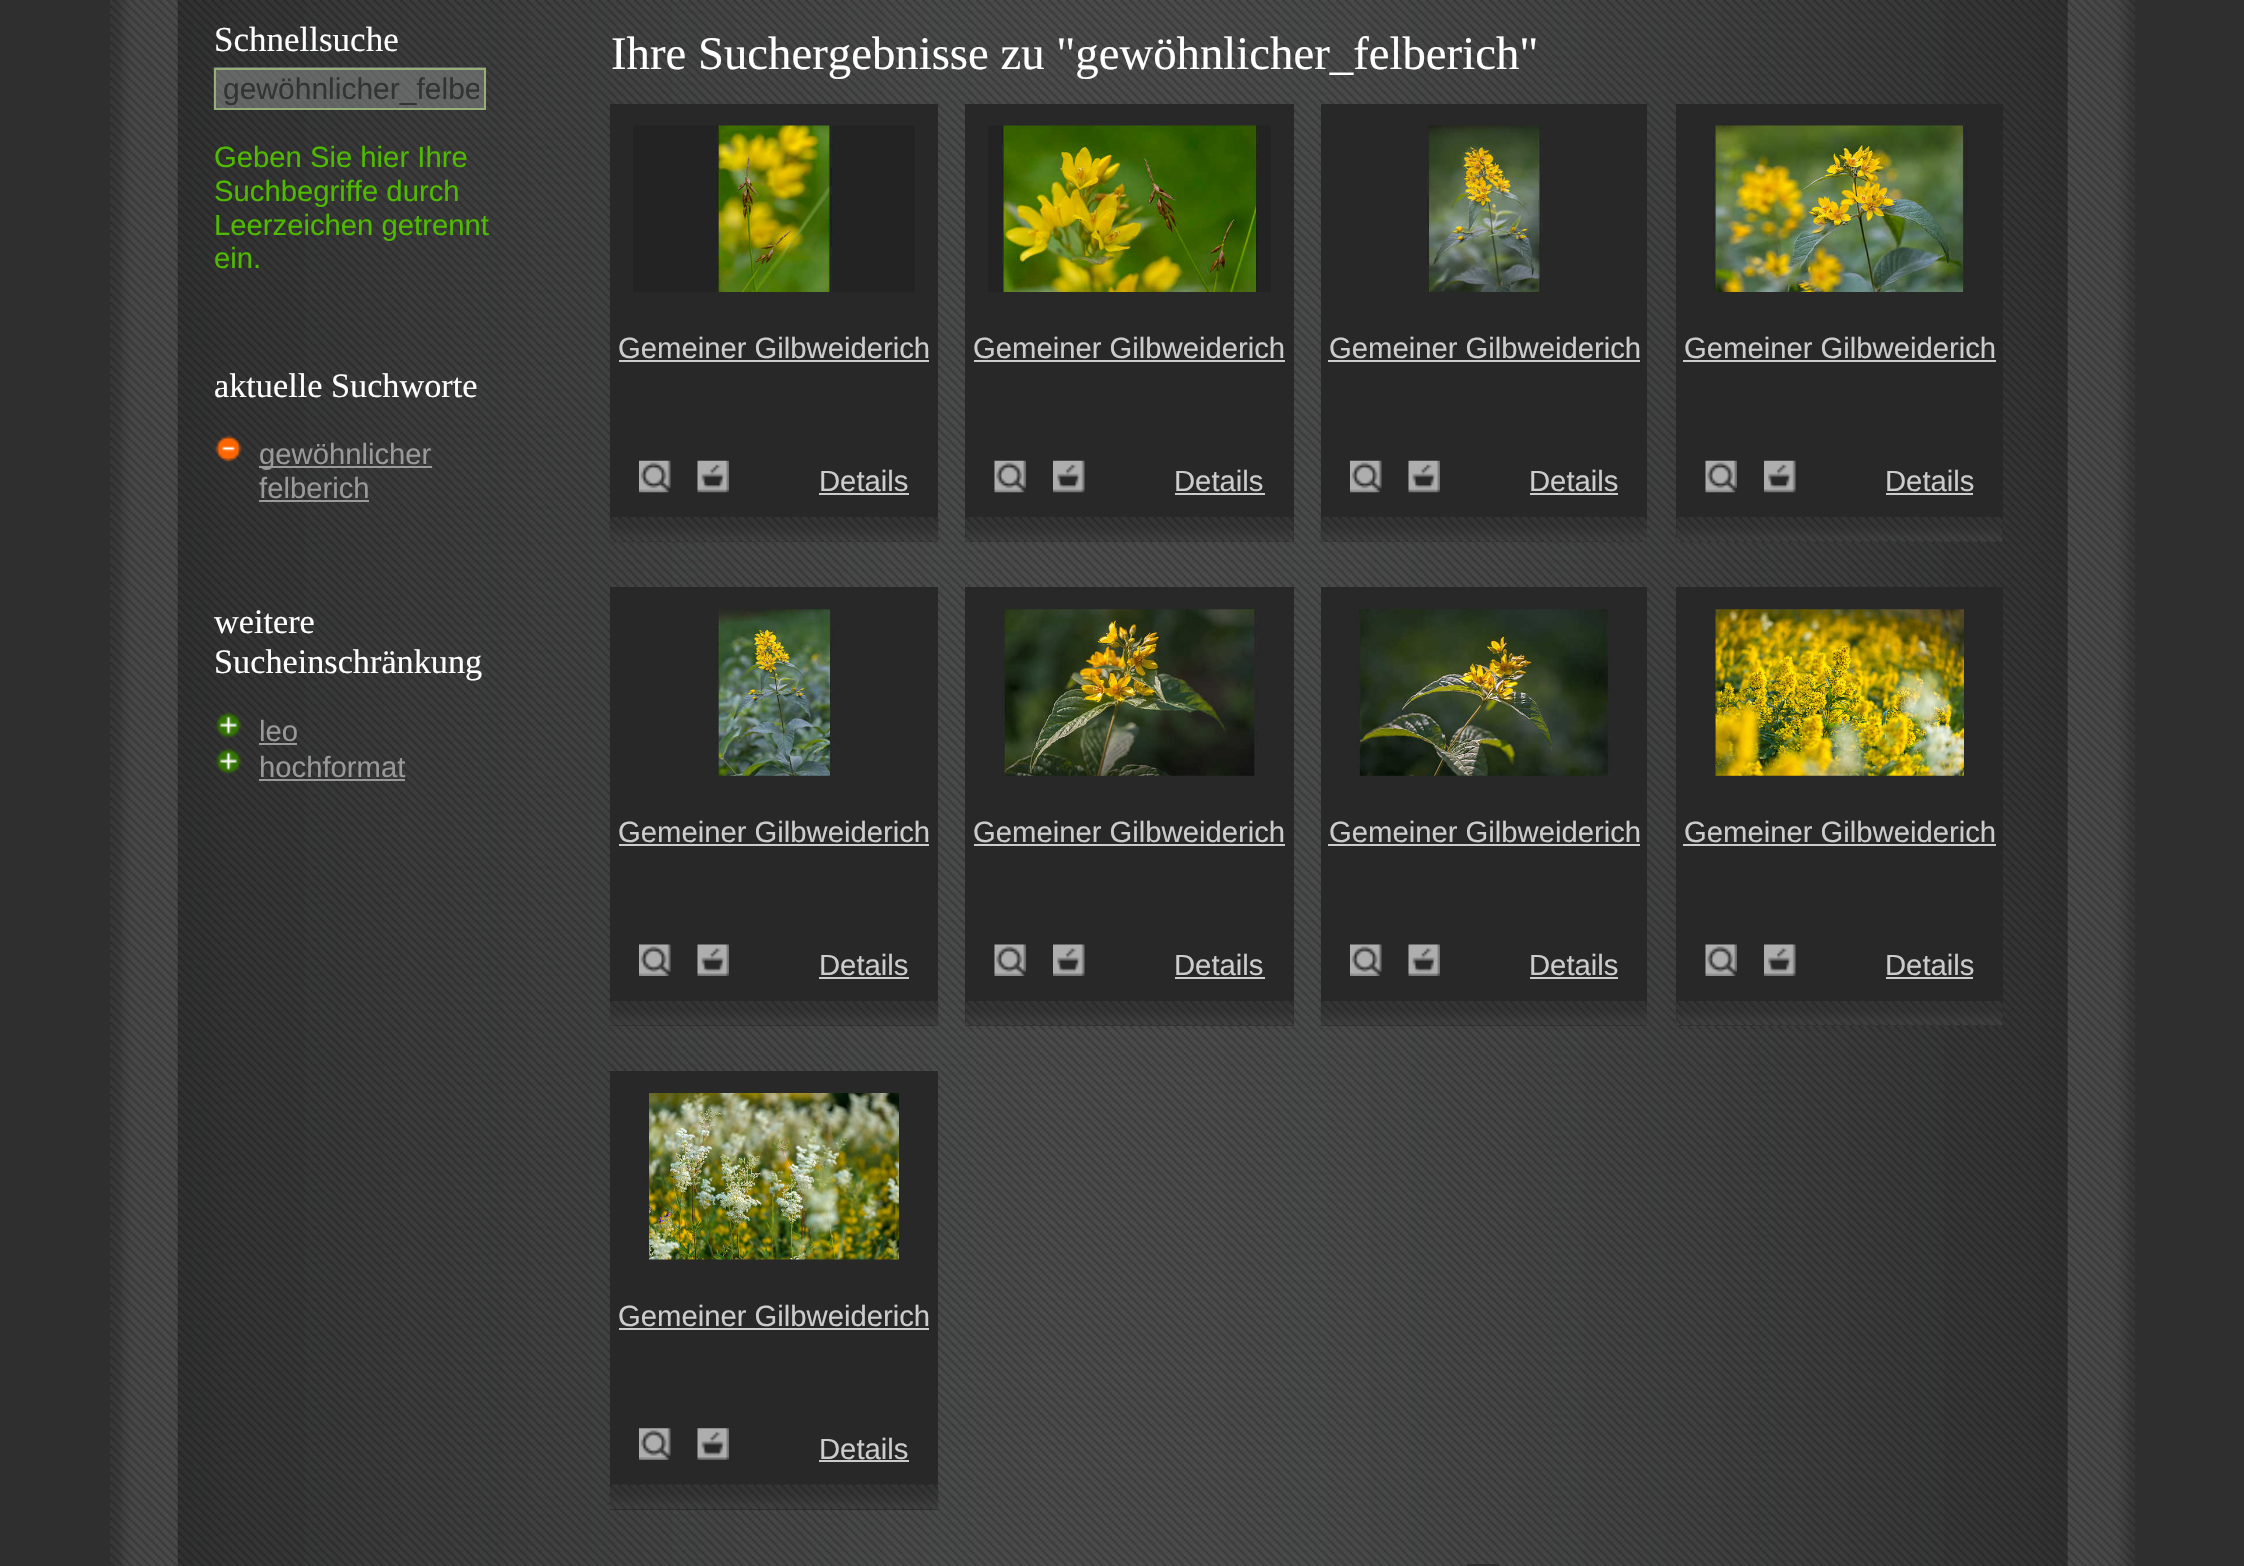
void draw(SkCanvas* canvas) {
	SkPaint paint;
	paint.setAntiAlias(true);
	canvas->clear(0xff302f2f);
	canvas->drawImageRect(SkImages::DeferredFromEncodedData(SkData::MakeFromFileName("img1.png")), SkRect::MakeXYWH(110, 0, 2025, 1566), SkSamplingOptions());
	canvas->drawImageRect(SkImages::DeferredFromEncodedData(SkData::MakeFromFileName("img2.png")), SkRect::MakeXYWH(177, 0, 1891, 1566), SkSamplingOptions());
	SkFont f1(fontMgr->matchFamilyStyle("Liberation Serif", SkFontStyle::Normal()), 35);
	f1.setSubpixel(true);
	paint.setColor(0xffffffff);
	canvas->drawString("Schnellsuche", 214, 51, f1, paint);
	canvas->drawImageRect(SkImages::DeferredFromEncodedData(SkData::MakeFromFileName("img3.png")), SkRect::MakeXYWH(213, 67, 273, 43), SkSamplingOptions());
	paint.setStroke(true);
	paint.setStrokeWidth(2);
	paint.setColor(0xff95af77);
	canvas->drawRect(SkRect::MakeXYWH(215, 69, 270, 40), paint);
	canvas->save();
	canvas->clipRect(SkRect::MakeXYWH(223, 72, 256, 34));
	SkFont f2(fontMgr->matchFamilyStyle("Liberation Sans", SkFontStyle::Normal()), 30);
	f2.setSubpixel(true);
	paint.setStroke(false);
	paint.setColor(0xff333333);
	canvas->drawString("gewöhnlicher_felbe", 223, 99, f2, paint);
	canvas->restore();
	SkFont f3(fontMgr->matchFamilyStyle("Liberation Sans", SkFontStyle::Normal()), 29.25);
	f3.setSubpixel(true);
	paint.setColor(0xff4fba00);
	canvas->drawString("Geben Sie hier Ihre", 214, 167, f3, paint);
	canvas->drawString("Suchbegriffe durch", 214, 201, f3, paint);
	canvas->drawString("Leerzeichen getrennt", 214, 235, f3, paint);
	canvas->drawString("ein.", 214, 268, f3, paint);
	SkFont f4(fontMgr->matchFamilyStyle("Liberation Serif", SkFontStyle::Normal()), 34.25);
	f4.setSubpixel(true);
	paint.setColor(0xffffffff);
	canvas->drawString("aktuelle Suchworte", 214, 397, f4, paint);
	canvas->drawImageRect(SkImages::DeferredFromEncodedData(SkData::MakeFromFileName("img4.png")), SkRect::MakeXYWH(215, 435, 27, 27), SkSamplingOptions());
	paint.setColor(0xff999999);
	canvas->drawRect(SkRect::MakeXYWH(259, 466, 173, 2), paint);
	canvas->drawString("gewöhnlicher", 259, 464, f3, paint);
	canvas->drawString("felberich", 259, 498, f3, paint);
	canvas->drawRect(SkRect::MakeXYWH(259, 500, 110, 2), paint);
	paint.setColor(0xffffffff);
	canvas->drawString("weitere", 214, 633, f4, paint);
	canvas->drawString("Sucheinschränkung", 214, 673, f4, paint);
	canvas->drawImageRect(SkImages::DeferredFromEncodedData(SkData::MakeFromFileName("img5.png")), SkRect::MakeXYWH(215, 712, 27, 26), SkSamplingOptions());
	paint.setColor(0xff999999);
	canvas->drawString("leo", 259, 741, f3, paint);
	canvas->drawRect(SkRect::MakeXYWH(259, 743, 38, 2), paint);
	canvas->drawImageRect(SkImages::DeferredFromEncodedData(SkData::MakeFromFileName("img5.png")), SkRect::MakeXYWH(215, 748, 27, 26), SkSamplingOptions());
	canvas->drawString("hochformat", 259, 777, f3, paint);
	canvas->drawRect(SkRect::MakeXYWH(259, 779, 146, 2), paint);
	SkFont f5(fontMgr->matchFamilyStyle("Liberation Serif", SkFontStyle::Normal()), 46.75);
	f5.setSubpixel(true);
	paint.setColor(0xffffffff);
	canvas->drawString("Ihre Suchergebnisse zu \"gewöhnlicher_felberich\"", 611, 69, f5, paint);
	paint.setColor(0xff282828);
	canvas->drawRect(SkRect::MakeXYWH(610, 104, 328, 438), paint);
	canvas->drawImageRect(SkImages::DeferredFromEncodedData(SkData::MakeFromFileName("img6.png")), SkRect::MakeXYWH(633, 125, 282, 167), SkSamplingOptions());
	paint.setColor(0xffcccccc);
	canvas->drawString("Gemeiner Gilbweiderich", 618, 358, f3, paint);
	canvas->drawRect(SkRect::MakeXYWH(619, 360, 310, 2), paint);
	canvas->drawImageRect(SkImages::DeferredFromEncodedData(SkData::MakeFromFileName("img7.png")), SkRect::MakeXYWH(639, 460, 32, 33), SkSamplingOptions());
	canvas->drawImageRect(SkImages::DeferredFromEncodedData(SkData::MakeFromFileName("img8.png")), SkRect::MakeXYWH(697, 460, 32, 33), SkSamplingOptions());
	canvas->drawString("Details", 819, 491, f3, paint);
	canvas->drawRect(SkRect::MakeXYWH(819, 493, 90, 2), paint);
	canvas->drawImageRect(SkImages::DeferredFromEncodedData(SkData::MakeFromFileName("img9.png")), SkRect::MakeXYWH(609, 517, 330, 25), SkSamplingOptions());
	paint.setColor(0xff282828);
	canvas->drawRect(SkRect::MakeXYWH(965, 104, 329, 438), paint);
	canvas->drawImageRect(SkImages::DeferredFromEncodedData(SkData::MakeFromFileName("img10.png")), SkRect::MakeXYWH(988, 125, 283, 167), SkSamplingOptions());
	paint.setColor(0xffcccccc);
	canvas->drawString("Gemeiner Gilbweiderich", 973, 358, f3, paint);
	canvas->drawRect(SkRect::MakeXYWH(974, 360, 311, 2), paint);
	canvas->drawImageRect(SkImages::DeferredFromEncodedData(SkData::MakeFromFileName("img11.png")), SkRect::MakeXYWH(994, 460, 32, 33), SkSamplingOptions());
	canvas->drawImageRect(SkImages::DeferredFromEncodedData(SkData::MakeFromFileName("img12.png")), SkRect::MakeXYWH(1053, 460, 32, 33), SkSamplingOptions());
	canvas->drawString("Details", 1174, 491, f3, paint);
	canvas->drawRect(SkRect::MakeXYWH(1175, 493, 90, 2), paint);
	canvas->drawImageRect(SkImages::DeferredFromEncodedData(SkData::MakeFromFileName("img13.png")), SkRect::MakeXYWH(965, 517, 329, 25), SkSamplingOptions());
	paint.setColor(0xff282828);
	canvas->drawRect(SkRect::MakeXYWH(1321, 104, 326, 438), paint);
	canvas->drawImageRect(SkImages::DeferredFromEncodedData(SkData::MakeFromFileName("img14.png")), SkRect::MakeXYWH(1427, 125, 115, 167), SkSamplingOptions());
	paint.setColor(0xffcccccc);
	canvas->drawString("Gemeiner Gilbweiderich", 1329, 358, f3, paint);
	canvas->drawRect(SkRect::MakeXYWH(1328, 360, 312, 2), paint);
	canvas->drawImageRect(SkImages::DeferredFromEncodedData(SkData::MakeFromFileName("img15.png")), SkRect::MakeXYWH(1350, 460, 32, 33), SkSamplingOptions());
	canvas->drawImageRect(SkImages::DeferredFromEncodedData(SkData::MakeFromFileName("img8.png")), SkRect::MakeXYWH(1408, 460, 32, 33), SkSamplingOptions());
	canvas->drawString("Details", 1529, 491, f3, paint);
	canvas->drawRect(SkRect::MakeXYWH(1530, 493, 88, 2), paint);
	canvas->drawImageRect(SkImages::DeferredFromEncodedData(SkData::MakeFromFileName("img16.png")), SkRect::MakeXYWH(1320, 517, 327, 25), SkSamplingOptions());
	paint.setColor(0xff282828);
	canvas->drawRect(SkRect::MakeXYWH(1676, 104, 327, 438), paint);
	canvas->drawImageRect(SkImages::DeferredFromEncodedData(SkData::MakeFromFileName("img17.png")), SkRect::MakeXYWH(1713, 125, 254, 167), SkSamplingOptions());
	paint.setColor(0xffcccccc);
	canvas->drawString("Gemeiner Gilbweiderich", 1684, 358, f3, paint);
	canvas->drawRect(SkRect::MakeXYWH(1683, 360, 313, 2), paint);
	canvas->drawImageRect(SkImages::DeferredFromEncodedData(SkData::MakeFromFileName("img18.png")), SkRect::MakeXYWH(1705, 460, 32, 33), SkSamplingOptions());
	canvas->drawImageRect(SkImages::DeferredFromEncodedData(SkData::MakeFromFileName("img19.png")), SkRect::MakeXYWH(1764, 460, 32, 33), SkSamplingOptions());
	canvas->drawString("Details", 1885, 491, f3, paint);
	canvas->drawRect(SkRect::MakeXYWH(1886, 493, 87, 2), paint);
	canvas->drawImageRect(SkImages::DeferredFromEncodedData(SkData::MakeFromFileName("img20.png")), SkRect::MakeXYWH(1676, 517, 327, 25), SkSamplingOptions());
	paint.setColor(0xff282828);
	canvas->drawRect(SkRect::MakeXYWH(610, 587, 328, 439), paint);
	canvas->drawImageRect(SkImages::DeferredFromEncodedData(SkData::MakeFromFileName("img21.png")), SkRect::MakeXYWH(716, 609, 117, 167), SkSamplingOptions());
	paint.setColor(0xffcccccc);
	canvas->drawString("Gemeiner Gilbweiderich", 618, 842, f3, paint);
	canvas->drawRect(SkRect::MakeXYWH(619, 844, 310, 2), paint);
	canvas->drawImageRect(SkImages::DeferredFromEncodedData(SkData::MakeFromFileName("img22.png")), SkRect::MakeXYWH(639, 944, 32, 32), SkSamplingOptions());
	canvas->drawImageRect(SkImages::DeferredFromEncodedData(SkData::MakeFromFileName("img23.png")), SkRect::MakeXYWH(697, 944, 32, 32), SkSamplingOptions());
	canvas->drawString("Details", 819, 975, f3, paint);
	canvas->drawRect(SkRect::MakeXYWH(819, 977, 90, 2), paint);
	canvas->drawImageRect(SkImages::DeferredFromEncodedData(SkData::MakeFromFileName("img24.png")), SkRect::MakeXYWH(610, 1001, 329, 25), SkSamplingOptions());
	paint.setColor(0xff282828);
	canvas->drawRect(SkRect::MakeXYWH(965, 587, 329, 439), paint);
	canvas->drawImageRect(SkImages::DeferredFromEncodedData(SkData::MakeFromFileName("img25.png")), SkRect::MakeXYWH(1002, 609, 256, 167), SkSamplingOptions());
	paint.setColor(0xffcccccc);
	canvas->drawString("Gemeiner Gilbweiderich", 973, 842, f3, paint);
	canvas->drawRect(SkRect::MakeXYWH(974, 844, 311, 2), paint);
	canvas->drawImageRect(SkImages::DeferredFromEncodedData(SkData::MakeFromFileName("img26.png")), SkRect::MakeXYWH(994, 944, 32, 32), SkSamplingOptions());
	canvas->drawImageRect(SkImages::DeferredFromEncodedData(SkData::MakeFromFileName("img27.png")), SkRect::MakeXYWH(1053, 944, 32, 32), SkSamplingOptions());
	canvas->drawString("Details", 1174, 975, f3, paint);
	canvas->drawRect(SkRect::MakeXYWH(1175, 977, 90, 2), paint);
	canvas->drawImageRect(SkImages::DeferredFromEncodedData(SkData::MakeFromFileName("img28.png")), SkRect::MakeXYWH(965, 1001, 329, 25), SkSamplingOptions());
	paint.setColor(0xff282828);
	canvas->drawRect(SkRect::MakeXYWH(1321, 587, 326, 439), paint);
	canvas->drawImageRect(SkImages::DeferredFromEncodedData(SkData::MakeFromFileName("img29.png")), SkRect::MakeXYWH(1357, 609, 255, 167), SkSamplingOptions());
	paint.setColor(0xffcccccc);
	canvas->drawString("Gemeiner Gilbweiderich", 1329, 842, f3, paint);
	canvas->drawRect(SkRect::MakeXYWH(1328, 844, 312, 2), paint);
	canvas->drawImageRect(SkImages::DeferredFromEncodedData(SkData::MakeFromFileName("img30.png")), SkRect::MakeXYWH(1350, 944, 32, 32), SkSamplingOptions());
	canvas->drawImageRect(SkImages::DeferredFromEncodedData(SkData::MakeFromFileName("img23.png")), SkRect::MakeXYWH(1408, 944, 32, 32), SkSamplingOptions());
	canvas->drawString("Details", 1529, 975, f3, paint);
	canvas->drawRect(SkRect::MakeXYWH(1530, 977, 88, 2), paint);
	canvas->drawImageRect(SkImages::DeferredFromEncodedData(SkData::MakeFromFileName("img31.png")), SkRect::MakeXYWH(1320, 1001, 327, 25), SkSamplingOptions());
	paint.setColor(0xff282828);
	canvas->drawRect(SkRect::MakeXYWH(1676, 587, 327, 439), paint);
	canvas->drawImageRect(SkImages::DeferredFromEncodedData(SkData::MakeFromFileName("img32.png")), SkRect::MakeXYWH(1713, 609, 254, 167), SkSamplingOptions());
	paint.setColor(0xffcccccc);
	canvas->drawString("Gemeiner Gilbweiderich", 1684, 842, f3, paint);
	canvas->drawRect(SkRect::MakeXYWH(1683, 844, 313, 2), paint);
	canvas->drawImageRect(SkImages::DeferredFromEncodedData(SkData::MakeFromFileName("img33.png")), SkRect::MakeXYWH(1705, 944, 32, 32), SkSamplingOptions());
	canvas->drawImageRect(SkImages::DeferredFromEncodedData(SkData::MakeFromFileName("img34.png")), SkRect::MakeXYWH(1764, 944, 32, 32), SkSamplingOptions());
	canvas->drawString("Details", 1885, 975, f3, paint);
	canvas->drawRect(SkRect::MakeXYWH(1886, 977, 87, 2), paint);
	canvas->drawImageRect(SkImages::DeferredFromEncodedData(SkData::MakeFromFileName("img35.png")), SkRect::MakeXYWH(1676, 1001, 327, 25), SkSamplingOptions());
	paint.setColor(0xff282828);
	canvas->drawRect(SkRect::MakeXYWH(610, 1071, 328, 439), paint);
	canvas->drawImageRect(SkImages::DeferredFromEncodedData(SkData::MakeFromFileName("img36.png")), SkRect::MakeXYWH(646, 1093, 256, 167), SkSamplingOptions());
	paint.setColor(0xffcccccc);
	canvas->drawString("Gemeiner Gilbweiderich", 618, 1326, f3, paint);
	canvas->drawRect(SkRect::MakeXYWH(619, 1328, 310, 2), paint);
	canvas->drawImageRect(SkImages::DeferredFromEncodedData(SkData::MakeFromFileName("img37.png")), SkRect::MakeXYWH(639, 1428, 32, 32), SkSamplingOptions());
	canvas->drawImageRect(SkImages::DeferredFromEncodedData(SkData::MakeFromFileName("img38.png")), SkRect::MakeXYWH(697, 1428, 32, 32), SkSamplingOptions());
	canvas->drawString("Details", 819, 1459, f3, paint);
	canvas->drawRect(SkRect::MakeXYWH(819, 1460, 90, 2), paint);
	canvas->drawImageRect(SkImages::DeferredFromEncodedData(SkData::MakeFromFileName("img39.png")), SkRect::MakeXYWH(609, 1484, 330, 26), SkSamplingOptions());
	paint.setColor(0xff2e2e2e);
	canvas->drawRect(SkRect::MakeXYWH(1467, 1564, 32, 2), paint);
}
